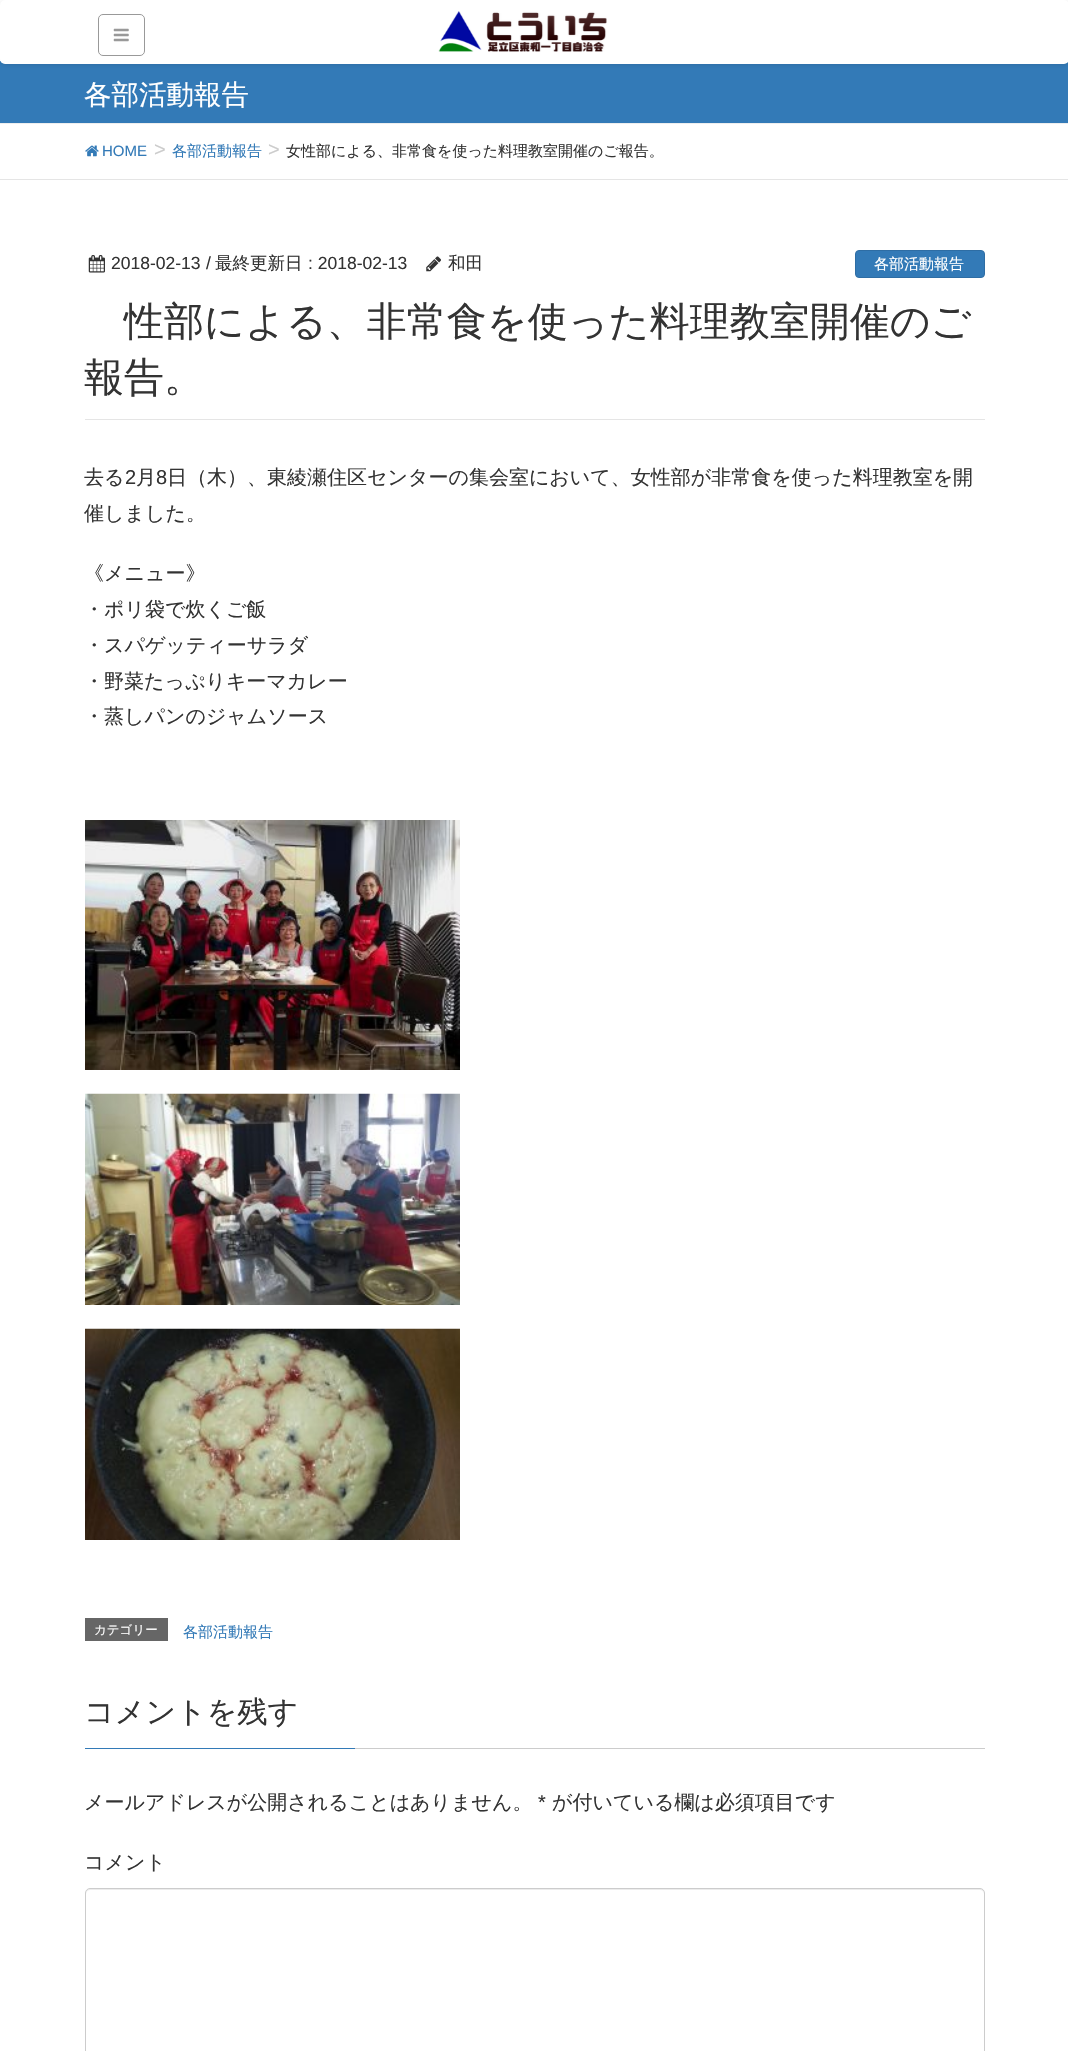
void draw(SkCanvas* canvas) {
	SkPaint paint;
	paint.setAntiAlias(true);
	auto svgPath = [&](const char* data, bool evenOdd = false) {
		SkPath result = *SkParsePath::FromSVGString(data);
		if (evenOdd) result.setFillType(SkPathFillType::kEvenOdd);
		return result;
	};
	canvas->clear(0xffffffff);
	paint.setColor(0xff337ab7);
	canvas->drawRect(SkRect::MakeXYWH(0, 61, 1068, 62), paint);
	paint.setColor(0x1a000000);
	paint.setMaskFilter(SkMaskFilter::MakeBlur(kNormal_SkBlurStyle, 2));
	canvas->drawRoundRect(SkRect::MakeXYWH(0, 1, 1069, 64), 5, 5, paint);
	paint.setMaskFilter(nullptr);
	paint.setColor(0xffffffff);
	canvas->drawRoundRect(SkRect::MakeXYWH(0, 0, 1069, 64), 5, 5, paint);
	paint.setStroke(true);
	paint.setStrokeWidth(1);
	paint.setColor(0xff999999);
	canvas->drawRoundRect(SkRect::MakeXYWH(98.5, 14.5, 46, 41), 4.5, 4.5, paint);
	canvas->drawImageRect(SkImages::DeferredFromEncodedData(SkData::MakeFromFileName("img1.png")), SkRect::MakeXYWH(113, 28, 16, 14), SkSamplingOptions());
	canvas->drawImageRect(SkImages::DeferredFromEncodedData(SkData::MakeFromFileName("img2.png")), SkRect::MakeXYWH(438, 11, 169, 41), SkSamplingOptions());
	paint.setStroke(false);
	paint.setColor(0xffeeeeee);
	canvas->drawRect(SkRect::MakeXYWH(0, 123, 1068, 1), paint);
	SkFont f1(fontMgr->matchFamilyStyle("WenQuanYi Zen Hei", SkFontStyle(500, SkFontStyle::kNormal_Width, SkFontStyle::kUpright_Slant)), 27.5);
	f1.setSubpixel(true);
	paint.setColor(0xffffffff);
	canvas->drawString("各部活動報告", 84, 104, f1, paint);
	paint.setColor(0xffe5e5e5);
	canvas->drawRect(SkRect::MakeXYWH(0, 179, 1068, 1), paint);
	canvas->drawImageRect(SkImages::DeferredFromEncodedData(SkData::MakeFromFileName("img3.png")), SkRect::MakeXYWH(85, 145, 14, 12), SkSamplingOptions());
	SkFont f2(fontMgr->matchFamilyStyle("Liberation Sans", SkFontStyle::Normal()), 15);
	f2.setSubpixel(true);
	paint.setColor(0xff337ab7);
	canvas->drawString("HOME", 102, 156, f2, paint);
	SkFont f3(fontMgr->matchFamilyStyle("Liberation Sans", SkFontStyle::Normal()), 20);
	f3.setSubpixel(true);
	paint.setColor(0xffcccccc);
	canvas->drawString(">", 154, 156, f3, paint);
	SkFont f4(fontMgr->matchFamilyStyle("WenQuanYi Zen Hei", SkFontStyle(500, SkFontStyle::kNormal_Width, SkFontStyle::kUpright_Slant)), 15);
	f4.setSubpixel(true);
	paint.setColor(0xff337ab7);
	canvas->drawString("各部活動報告", 172, 156, f4, paint);
	paint.setColor(0xffcccccc);
	canvas->drawString(">", 268, 156, f3, paint);
	paint.setColor(0xff333333);
	canvas->drawString("女性部による、非常食を使った料理教室開催のご報告。", 286, 156, f4, paint);
	paint.setColor(0xffe5e5e5);
	canvas->drawRect(SkRect::MakeXYWH(85, 419, 900, 1), paint);
	canvas->drawImageRect(SkImages::DeferredFromEncodedData(SkData::MakeFromFileName("img4.png")), SkRect::MakeXYWH(88, 255, 17, 18), SkSamplingOptions());
	SkFont f5(fontMgr->matchFamilyStyle("Liberation Sans", SkFontStyle::Normal()), 17.5);
	f5.setSubpixel(true);
	paint.setColor(0xff333333);
	canvas->drawString("2018-02-13", 111, 269, f5, paint);
	canvas->drawString("/", 206, 269, f5, paint);
	SkFont f6(fontMgr->matchFamilyStyle("WenQuanYi Zen Hei", SkFontStyle(500, SkFontStyle::kNormal_Width, SkFontStyle::kUpright_Slant)), 17.5);
	f6.setSubpixel(true);
	canvas->drawString("最終更新日", 215, 269, f6, paint);
	canvas->drawString(": 2018-02-13", 308, 269, f5, paint);
	canvas->drawImageRect(SkImages::DeferredFromEncodedData(SkData::MakeFromFileName("img5.png")), SkRect::MakeXYWH(426, 256, 15, 16), SkSamplingOptions());
	canvas->drawString("和田", 448, 269, f6, paint);
	paint.setColor(0xff337ab7);
	canvas->drawRoundRect(SkRect::MakeXYWH(855.5, 250.5, 129, 27), 3.5, 3.5, paint);
	paint.setStroke(true);
	paint.setColor(0xff2e6da4);
	canvas->drawRoundRect(SkRect::MakeXYWH(855.5, 250.5, 129, 27), 3.5, 3.5, paint);
	paint.setStroke(false);
	paint.setColor(0xffffffff);
	canvas->drawString("各部活動報告", 874, 269, f4, paint);
	SkFont f7(fontMgr->matchFamilyStyle("Noto Sans", SkFontStyle(500, SkFontStyle::kNormal_Width, SkFontStyle::kUpright_Slant)), 40);
	f7.setSubpixel(true);
	paint.setColor(0xff337ab7);
	canvas->drawString("女", 84, 335, f7, paint);
	SkFont f8(fontMgr->matchFamilyStyle("WenQuanYi Zen Hei", SkFontStyle(500, SkFontStyle::kNormal_Width, SkFontStyle::kUpright_Slant)), 40);
	f8.setSubpixel(true);
	paint.setColor(0xff333333);
	canvas->drawString("性部による、非常食を使った料理教室開催のご", 124, 335, f8, paint);
	canvas->drawString("報告。", 84, 391, f8, paint);
	SkFont f9(fontMgr->matchFamilyStyle("WenQuanYi Zen Hei", SkFontStyle(500, SkFontStyle::kNormal_Width, SkFontStyle::kUpright_Slant)), 20);
	f9.setSubpixel(true);
	canvas->drawString("去る", 84, 484, f9, paint);
	canvas->drawString("2", 125, 484, f3, paint);
	canvas->drawString("月", 136, 484, f9, paint);
	canvas->drawString("8", 156, 484, f3, paint);
	canvas->drawString("日（木）、東綾瀬住区センターの集会室において、女性部が非常食を使った料理教室を開", 167, 484, f9, paint);
	canvas->drawString("催しました。", 84, 520, f9, paint);
	canvas->drawString("《メニュー》", 84, 580, f9, paint);
	canvas->drawString("・ポリ袋で炊くご飯", 84, 616, f9, paint);
	canvas->drawString("・スパゲッティーサラダ", 84, 652, f9, paint);
	canvas->drawString("・野菜たっぷりキーマカレー", 84, 688, f9, paint);
	canvas->drawString("・蒸しパンのジャムソース", 84, 723, f9, paint);
	canvas->drawImageRect(SkImages::DeferredFromEncodedData(SkData::MakeFromFileName("img6.png")), SkRect::MakeXYWH(85, 820, 375, 250), SkSamplingOptions());
	canvas->drawImageRect(SkImages::DeferredFromEncodedData(SkData::MakeFromFileName("img7.png")), SkRect::MakeXYWH(85, 1093, 375, 212), SkSamplingOptions());
	canvas->drawImageRect(SkImages::DeferredFromEncodedData(SkData::MakeFromFileName("img8.png")), SkRect::MakeXYWH(85, 1328, 375, 212), SkSamplingOptions());
	paint.setColor(0xff666666);
	canvas->drawRect(SkRect::MakeXYWH(85, 1618, 83, 23), paint);
	SkFont f10(fontMgr->matchFamilyStyle("WenQuanYi Zen Hei", SkFontStyle(500, SkFontStyle::kNormal_Width, SkFontStyle::kUpright_Slant)), 12.5);
	f10.setSubpixel(true);
	paint.setColor(0xffffffff);
	canvas->drawString("カテゴリー", 94, 1634, f10, paint);
	paint.setColor(0xff337ab7);
	canvas->drawString("各部活動報告", 183, 1637, f4, paint);
	paint.setColor(0xffcccccc);
	canvas->drawRect(SkRect::MakeXYWH(355, 1748, 630, 1), paint);
	SkFont f11(fontMgr->matchFamilyStyle("WenQuanYi Zen Hei", SkFontStyle(500, SkFontStyle::kNormal_Width, SkFontStyle::kUpright_Slant)), 30);
	f11.setSubpixel(true);
	paint.setColor(0xff333333);
	canvas->drawString("コメントを残す", 84, 1722, f11, paint);
	paint.setColor(0xff337ab7);
	canvas->drawRect(SkRect::MakeXYWH(85, 1748, 270, 1), paint);
	paint.setColor(0xff333333);
	canvas->drawString("メールアドレスが公開されることはありません。", 84, 1809, f9, paint);
	canvas->drawString("*", 538, 1809, f3, paint);
	canvas->drawString("が付いている欄は必須項目です", 552, 1809, f9, paint);
	canvas->drawString("コメント", 84, 1869, f9, paint);
	paint.setColor(0xffececec);
	canvas->drawPath(svgPath("M90 1890H980C982 1890 984 1892 984 1894C984 1891 983 1889 980 1889H90C87 1889 86 1891 86 1894C86 1892 88 1890 90 1890Z"), paint);
	paint.setStroke(true);
	paint.setColor(0xffcccccc);
	canvas->drawRoundRect(SkRect::MakeXYWH(85.5, 1888.5, 899, 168), 4.5, 4.5, paint);
}
